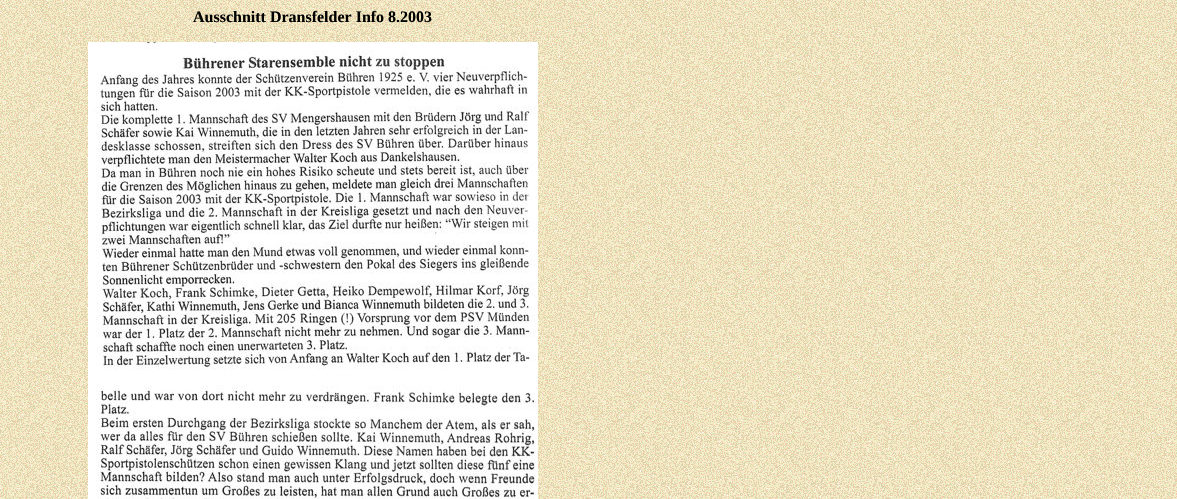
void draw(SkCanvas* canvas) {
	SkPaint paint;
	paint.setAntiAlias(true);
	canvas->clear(0xffffffff);
	canvas->drawImageRect(SkImages::DeferredFromEncodedData(SkData::MakeFromFileName("img1.png")), SkRect::MakeXYWH(0, 0, 1177, 499), SkSamplingOptions());
	SkFont f1(fontMgr->matchFamilyStyle("Liberation Serif", SkFontStyle::Bold()), 16);
	f1.setSubpixel(true);
	paint.setColor(0xff000000);
	canvas->drawString("Ausschnitt Dransfelder Info 8.2003", 193, 22, f1, paint);
	canvas->drawImageRect(SkImages::DeferredFromEncodedData(SkData::MakeFromFileName("img2.png")), SkRect::MakeXYWH(88, 42, 450, 335), SkSamplingOptions());
	canvas->drawImageRect(SkImages::DeferredFromEncodedData(SkData::MakeFromFileName("img3.png")), SkRect::MakeXYWH(88, 377, 450, 122), SkSamplingOptions());
}
